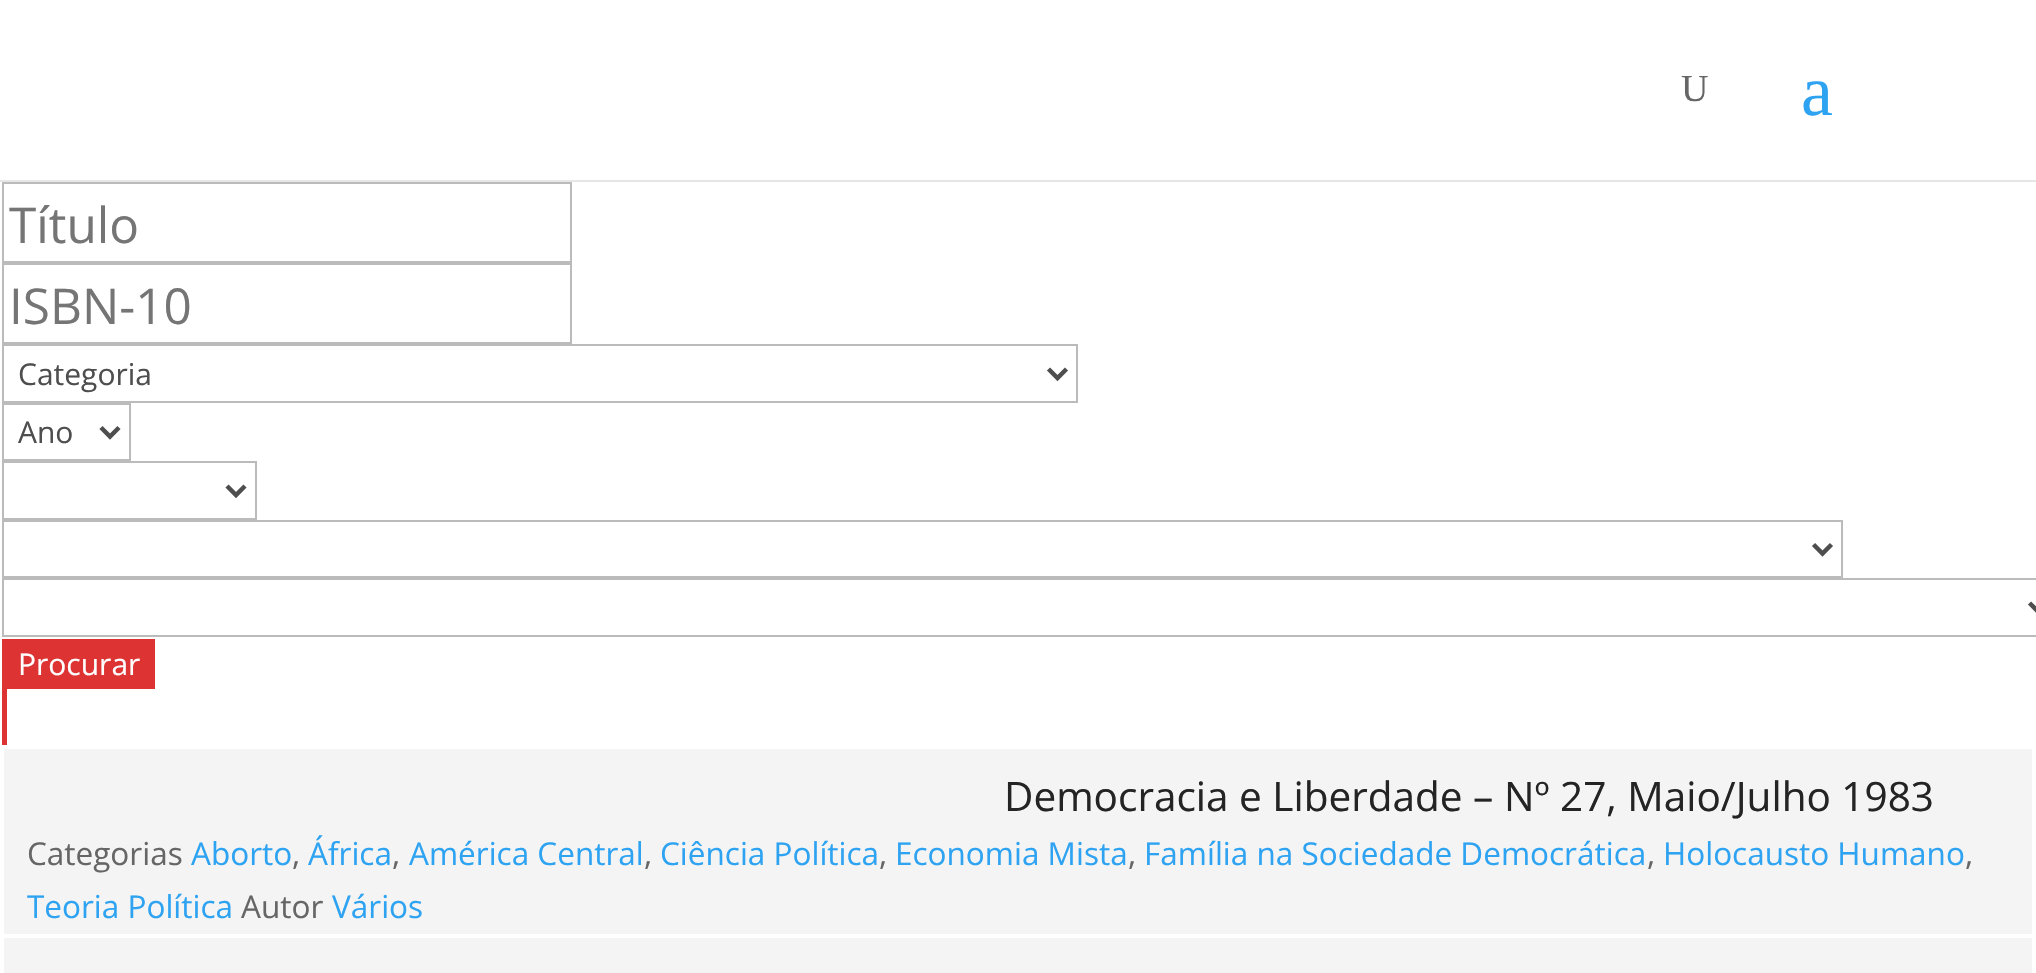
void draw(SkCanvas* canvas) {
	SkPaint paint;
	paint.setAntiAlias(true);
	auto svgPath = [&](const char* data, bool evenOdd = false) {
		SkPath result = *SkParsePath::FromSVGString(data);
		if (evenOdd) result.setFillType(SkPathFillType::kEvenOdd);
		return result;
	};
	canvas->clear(0xffffffff);
	paint.setColor(0xffe6e6e6);
	canvas->drawRect(SkRect::MakeXYWH(0, 180, 2036, 2), paint);
	SkFont f1(fontMgr->matchFamilyStyle("Liberation Serif", SkFontStyle::Normal()), 38);
	f1.setSubpixel(true);
	paint.setColor(0xff666666);
	canvas->drawString("U", 1681, 101, f1, paint);
	SkFont f2(fontMgr->matchFamilyStyle("Liberation Serif", SkFontStyle::Normal()), 72);
	f2.setSubpixel(true);
	paint.setColor(0xff2ea3f2);
	canvas->drawString("a", 1801, 115, f2, paint);
	paint.setStroke(true);
	paint.setStrokeWidth(2);
	paint.setColor(0xffbbbbbb);
	canvas->drawRect(SkRect::MakeXYWH(3, 183, 568, 79), paint);
	SkFont f3(fontMgr->matchFamilyStyle("Open Sans", SkFontStyle::Normal()), 49.5);
	f3.setSubpixel(true);
	paint.setStroke(false);
	paint.setColor(0xff757575);
	canvas->drawString("Título", 9, 243, f3, paint);
	paint.setStroke(true);
	paint.setColor(0xffbbbbbb);
	canvas->drawRect(SkRect::MakeXYWH(3, 264, 568, 79), paint);
	paint.setStroke(false);
	paint.setColor(0xff757575);
	canvas->drawString("ISBN-10", 9, 324, f3, paint);
	paint.setStroke(true);
	paint.setColor(0xffbbbbbb);
	canvas->drawRect(SkRect::MakeXYWH(3, 345, 1074, 57), paint);
	paint.setStrokeWidth(4.5);
	paint.setColor(0xff4e4e4e);
	canvas->drawPath(svgPath("M1048.5 369L1057.5 378L1066.5 369"), paint);
	SkFont f4(fontMgr->matchFamilyStyle("Open Sans", SkFontStyle::Normal()), 30);
	f4.setSubpixel(true);
	paint.setStroke(false);
	canvas->drawString("Categoria", 18, 385, f4, paint);
	paint.setStroke(true);
	paint.setStrokeWidth(2);
	paint.setColor(0xffbbbbbb);
	canvas->drawRect(SkRect::MakeXYWH(3, 404, 127, 56), paint);
	paint.setStrokeWidth(4.5);
	paint.setColor(0xff4e4e4e);
	canvas->drawPath(svgPath("M101 427.5L110 436.5L119 427.5"), paint);
	paint.setStroke(false);
	canvas->drawString("Ano", 18, 443, f4, paint);
	paint.setStroke(true);
	paint.setStrokeWidth(2);
	paint.setColor(0xffbbbbbb);
	canvas->drawRect(SkRect::MakeXYWH(3, 462, 253, 57), paint);
	paint.setStrokeWidth(4.5);
	paint.setColor(0xff4e4e4e);
	canvas->drawPath(svgPath("M227 486L236 495L245 486"), paint);
	paint.setStrokeWidth(2);
	paint.setColor(0xffbbbbbb);
	canvas->drawRect(SkRect::MakeXYWH(3, 521, 1839, 56), paint);
	paint.setStrokeWidth(4.5);
	paint.setColor(0xff4e4e4e);
	canvas->drawPath(svgPath("M1813.5 544.5L1822.5 553.5L1831.5 544.5"), paint);
	paint.setStrokeWidth(2);
	paint.setColor(0xffbbbbbb);
	canvas->drawRect(SkRect::MakeXYWH(3, 579, 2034, 57), paint);
	paint.setStrokeWidth(4.5);
	paint.setColor(0xff4e4e4e);
	canvas->drawPath(svgPath("M2029.5 603L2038.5 612L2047.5 603"), paint);
	paint.setStroke(false);
	paint.setColor(0xffdd3333);
	canvas->drawRect(SkRect::MakeXYWH(2, 686, 5, 59), paint);
	canvas->drawRect(SkRect::MakeXYWH(2, 639, 153, 50), paint);
	paint.setColor(0xffffffff);
	canvas->drawString("Procurar", 18, 675, f4, paint);
	paint.setColor(0xfff4f4f4);
	canvas->drawRect(SkRect::MakeXYWH(4, 749, 2028, 185), paint);
	SkFont f5(fontMgr->matchFamilyStyle("Open Sans", SkFontStyle::Normal()), 40.5);
	f5.setSubpixel(true);
	paint.setColor(0xff242424);
	canvas->drawString("Democracia e Liberdade – Nº 27, Maio/Julho 1983", 1004, 811, f5, paint);
	SkFont f6(fontMgr->matchFamilyStyle("Open Sans", SkFontStyle::Normal()), 31.5);
	f6.setSubpixel(true);
	paint.setColor(0xff666666);
	canvas->drawString("Categorias", 27, 865, f6, paint);
	paint.setColor(0xff2ea3f2);
	canvas->drawString("Aborto", 191, 865, f6, paint);
	paint.setColor(0xff666666);
	canvas->drawString(",", 292, 865, f6, paint);
	paint.setColor(0xff2ea3f2);
	canvas->drawString("África", 308, 865, f6, paint);
	paint.setColor(0xff666666);
	canvas->drawString(",", 392, 865, f6, paint);
	paint.setColor(0xff2ea3f2);
	canvas->drawString("América Central", 409, 865, f6, paint);
	paint.setColor(0xff666666);
	canvas->drawString(",", 644, 865, f6, paint);
	paint.setColor(0xff2ea3f2);
	canvas->drawString("Ciência Política", 660, 865, f6, paint);
	paint.setColor(0xff666666);
	canvas->drawString(",", 879, 865, f6, paint);
	paint.setColor(0xff2ea3f2);
	canvas->drawString("Economia Mista", 895, 865, f6, paint);
	paint.setColor(0xff666666);
	canvas->drawString(",", 1128, 865, f6, paint);
	paint.setColor(0xff2ea3f2);
	canvas->drawString("Família na Sociedade Democrática", 1144, 865, f6, paint);
	paint.setColor(0xff666666);
	canvas->drawString(",", 1647, 865, f6, paint);
	paint.setColor(0xff2ea3f2);
	canvas->drawString("Holocausto Humano", 1663, 865, f6, paint);
	paint.setColor(0xff666666);
	canvas->drawString(",", 1965, 865, f6, paint);
	paint.setColor(0xff2ea3f2);
	canvas->drawString("Teoria Política", 27, 918, f6, paint);
	paint.setColor(0xff666666);
	canvas->drawString("Autor", 241, 918, f6, paint);
	paint.setColor(0xff2ea3f2);
	canvas->drawString("Vários", 332, 918, f6, paint);
	paint.setColor(0xfff4f4f4);
	canvas->drawRect(SkRect::MakeXYWH(4, 938, 2028, 35), paint);
}
